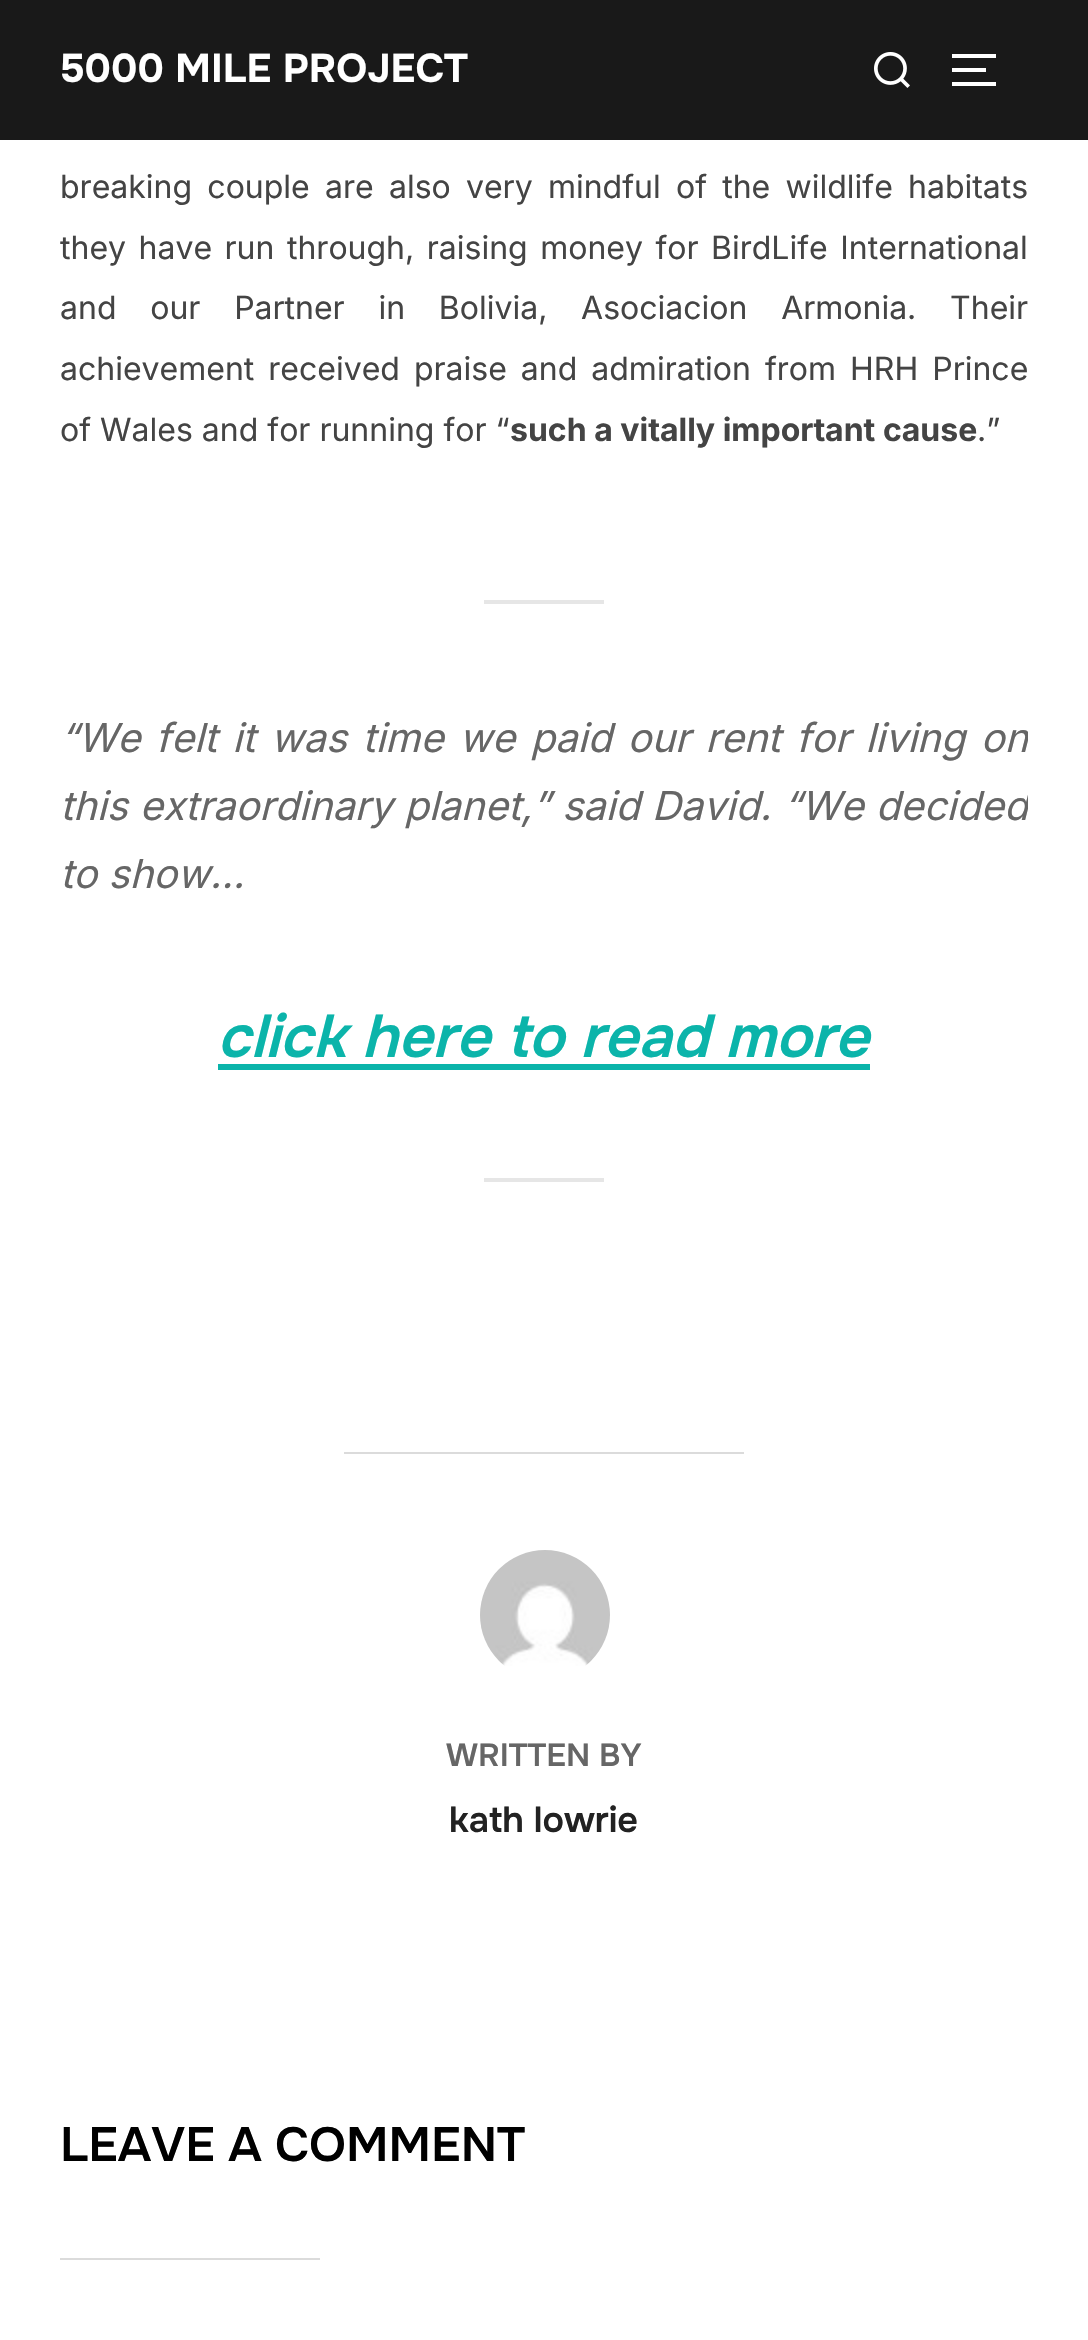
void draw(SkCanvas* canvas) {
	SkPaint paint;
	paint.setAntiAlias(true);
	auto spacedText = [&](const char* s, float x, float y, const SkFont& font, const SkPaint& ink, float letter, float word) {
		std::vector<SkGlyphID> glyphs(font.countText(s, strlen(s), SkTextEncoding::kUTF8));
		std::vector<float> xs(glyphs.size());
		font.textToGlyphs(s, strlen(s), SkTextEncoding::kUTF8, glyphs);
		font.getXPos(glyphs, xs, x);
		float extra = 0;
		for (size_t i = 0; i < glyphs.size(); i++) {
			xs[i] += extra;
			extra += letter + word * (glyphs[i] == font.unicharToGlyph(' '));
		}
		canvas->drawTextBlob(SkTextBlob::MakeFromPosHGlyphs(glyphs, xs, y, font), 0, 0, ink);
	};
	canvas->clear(0xffffffff);
	paint.setColor(0xe6000000);
	canvas->drawRect(SkRect::MakeXYWH(0, 0, 1088, 140), paint);
	SkFont f1(fontMgr->matchFamilyStyle("Onest", SkFontStyle::Bold()), 40);
	f1.setSubpixel(true);
	paint.setColor(0xffffffff);
	canvas->drawString("5000 MILE PROJECT", 60, 82, f1, paint);
	canvas->drawImageRect(SkImages::DeferredFromEncodedData(SkData::MakeFromFileName("img1.png")), SkRect::MakeXYWH(874, 52, 36, 36), SkSamplingOptions());
	canvas->drawRect(SkRect::MakeXYWH(952, 54, 44, 4), paint);
	canvas->drawRect(SkRect::MakeXYWH(952, 68, 34, 4), paint);
	canvas->drawRect(SkRect::MakeXYWH(952, 82, 44, 4), paint);
	SkFont f2(fontMgr->matchFamilyStyle("Inter", SkFontStyle::Normal()), 32);
	f2.setSubpixel(true);
	paint.setColor(0xff444444);
	spacedText("breaking couple are also very mindful of the wildlife habitats", 60, 198, f2, paint, 0, 6.25);
	spacedText("they have run through, raising money for BirdLife International", 60, 259, f2, paint, 0, 3.5);
	spacedText("and our Partner in Bolivia, Asociacion Armonia. Their", 60, 319, f2, paint, 0, 24.75);
	spacedText("achievement received praise and admiration from HRH Prince", 60, 380, f2, paint, 0, 5);
	canvas->drawString("of Wales and for running for “", 60, 441, f2, paint);
	SkFont f3(fontMgr->matchFamilyStyle("Inter", SkFontStyle::Bold()), 32);
	f3.setSubpixel(true);
	canvas->drawString("such a vitally important cause", 510, 441, f3, paint);
	canvas->drawString(".”", 977, 441, f2, paint);
	paint.setColor(0xffe6e6e6);
	canvas->drawRect(SkRect::MakeXYWH(484, 600, 120, 4), paint);
	canvas->save();
	canvas->clipRect(SkRect::MakeXYWH(60, 500, 968, 782));
	SkFont f4(fontMgr->matchFamilyStyle("Inter", SkFontStyle::Italic()), 40);
	f4.setSubpixel(true);
	paint.setColor(0xff666666);
	spacedText("“We felt it was time we paid our rent for living on", 60, 752, f4, paint, 0, 4.25);
	spacedText("this extraordinary planet,” said David. “We decided", 60, 820, f4, paint, 0, 0.75);
	canvas->restore();
	canvas->drawString("to show…", 60, 888, f4, paint);
	SkFont f5(fontMgr->matchFamilyStyle("Onest", SkFontStyle(600, SkFontStyle::kNormal_Width, SkFontStyle::kItalic_Slant)), 60);
	f5.setSubpixel(true);
	paint.setColor(0xff0bb4aa);
	spacedText("click here to read more", 217, 1057, f5, paint, 0, -0.5);
	canvas->drawRect(SkRect::MakeXYWH(218, 1064, 652, 6), paint);
	paint.setColor(0xffe6e6e6);
	canvas->drawRect(SkRect::MakeXYWH(484, 1178, 120, 4), paint);
	paint.setColor(0xffdbdbdb);
	canvas->drawRect(SkRect::MakeXYWH(344, 1452, 400, 2), paint);
	canvas->drawImageRect(SkImages::DeferredFromEncodedData(SkData::MakeFromFileName("img2.png")), SkRect::MakeXYWH(480, 1550, 130, 116), SkSamplingOptions());
	SkFont f6(fontMgr->matchFamilyStyle("Onest", SkFontStyle(600, SkFontStyle::kNormal_Width, SkFontStyle::kUpright_Slant)), 32);
	f6.setSubpixel(true);
	paint.setColor(0xff666666);
	canvas->drawString("WRITTEN BY", 446, 1766, f6, paint);
	SkFont f7(fontMgr->matchFamilyStyle("Onest", SkFontStyle(600, SkFontStyle::kNormal_Width, SkFontStyle::kUpright_Slant)), 36);
	f7.setSubpixel(true);
	paint.setColor(0xff222222);
	canvas->drawString("kath lowrie", 449, 1832, f7, paint);
	SkFont f8(fontMgr->matchFamilyStyle("Onest", SkFontStyle(600, SkFontStyle::kNormal_Width, SkFontStyle::kUpright_Slant)), 48);
	f8.setSubpixel(true);
	paint.setColor(0xff000000);
	canvas->drawString("LEAVE A COMMENT", 60, 2161, f8, paint);
	paint.setColor(0xffdbdbdb);
	canvas->drawRect(SkRect::MakeXYWH(60, 2258, 260, 2), paint);
}
